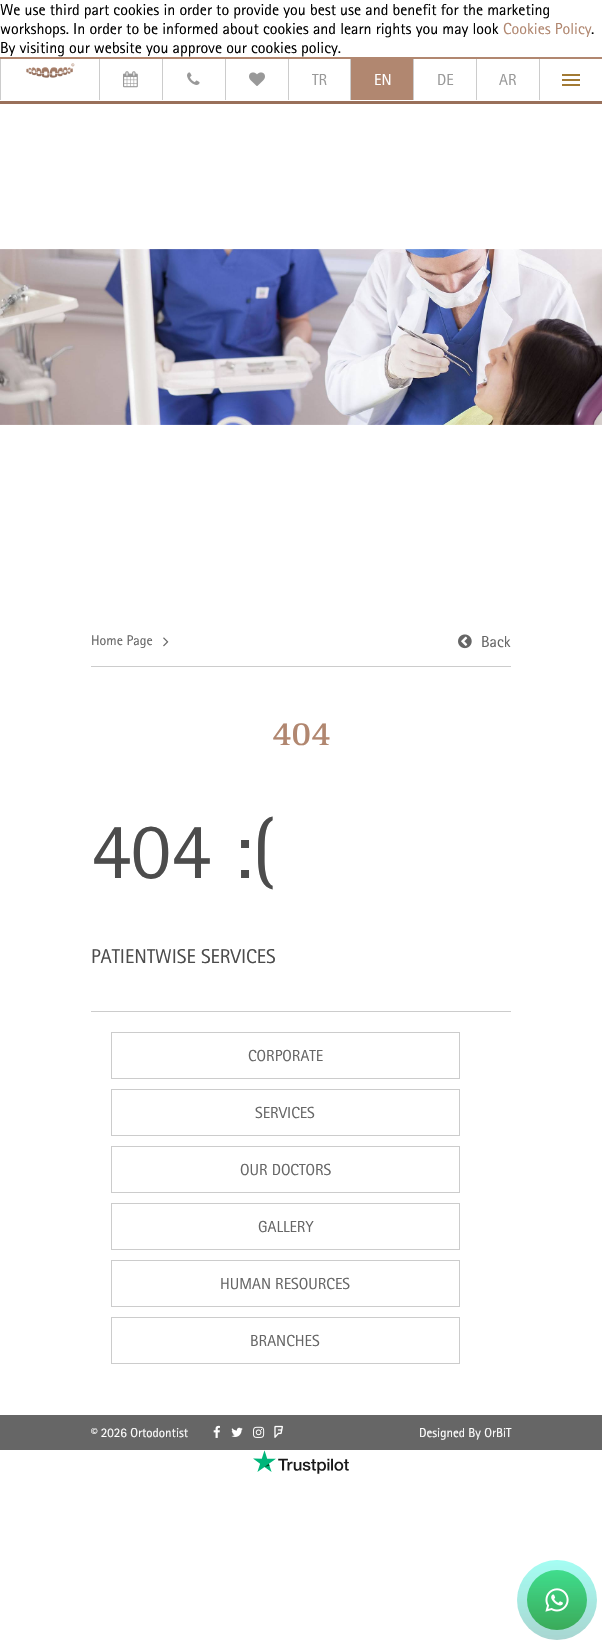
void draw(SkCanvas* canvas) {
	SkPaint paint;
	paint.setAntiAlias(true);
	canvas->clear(0xffffffff);
	SkFont f1(fontMgr->matchFamilyStyle("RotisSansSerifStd", SkFontStyle::Normal()), 16);
	f1.setSubpixel(true);
	paint.setColor(0xff000000);
	canvas->drawString("We use third part cookies in order to provide you best use and benefit for the marketing", 0, 15, f1, paint);
	canvas->drawString("workshops. In order to be informed about cookies and learn rights you may look", 0, 34, f1, paint);
	paint.setColor(0xffb18770);
	canvas->drawString("Cookies Policy", 503, 34, f1, paint);
	paint.setColor(0xff000000);
	canvas->drawString(".", 591, 34, f1, paint);
	canvas->drawString("By visiting our website you approve our cookies policy.", 0, 53, f1, paint);
	paint.setColor(0xffb18770);
	canvas->drawRect(SkRect::MakeXYWH(0, 57, 602, 2), paint);
	paint.setColor(0xffcccccc);
	canvas->drawRect(SkRect::MakeXYWH(0, 59, 1, 41), paint);
	canvas->drawImageRect(SkImages::DeferredFromEncodedData(SkData::MakeFromFileName("img1.png")), SkRect::MakeXYWH(26, 63, 49, 15), SkSamplingOptions());
	canvas->drawRect(SkRect::MakeXYWH(99, 59, 1, 41), paint);
	canvas->drawImageRect(SkImages::DeferredFromEncodedData(SkData::MakeFromFileName("img2.png")), SkRect::MakeXYWH(123, 71, 15, 17), SkSamplingOptions());
	canvas->drawRect(SkRect::MakeXYWH(162, 59, 1, 41), paint);
	canvas->drawImageRect(SkImages::DeferredFromEncodedData(SkData::MakeFromFileName("img3.png")), SkRect::MakeXYWH(187, 72, 13, 13), SkSamplingOptions());
	canvas->drawRect(SkRect::MakeXYWH(225, 59, 1, 41), paint);
	canvas->drawImageRect(SkImages::DeferredFromEncodedData(SkData::MakeFromFileName("img4.png")), SkRect::MakeXYWH(249, 72, 16, 14), SkSamplingOptions());
	canvas->drawRect(SkRect::MakeXYWH(288, 59, 1, 41), paint);
	paint.setColor(0xff999999);
	canvas->drawString("TR", 312, 85, f1, paint);
	paint.setColor(0xffcccccc);
	canvas->drawRect(SkRect::MakeXYWH(350, 59, 1, 41), paint);
	paint.setColor(0xffb18770);
	canvas->drawRect(SkRect::MakeXYWH(351, 59, 62, 41), paint);
	paint.setColor(0xffffffff);
	canvas->drawString("EN", 374, 85, f1, paint);
	paint.setColor(0xffcccccc);
	canvas->drawRect(SkRect::MakeXYWH(413, 59, 1, 41), paint);
	paint.setColor(0xff999999);
	canvas->drawString("DE", 437, 85, f1, paint);
	paint.setColor(0xffcccccc);
	canvas->drawRect(SkRect::MakeXYWH(476, 59, 1, 41), paint);
	paint.setColor(0xff999999);
	canvas->drawString("AR", 499, 85, f1, paint);
	paint.setColor(0xffcccccc);
	canvas->drawRect(SkRect::MakeXYWH(539, 59, 1, 41), paint);
	paint.setColor(0xffa27a34);
	canvas->drawRect(SkRect::MakeXYWH(562, 79, 18, 2), paint);
	canvas->drawRect(SkRect::MakeXYWH(562, 74, 18, 2), paint);
	canvas->drawRect(SkRect::MakeXYWH(562, 84, 18, 2), paint);
	paint.setColor(0xff99705a);
	canvas->drawRect(SkRect::MakeXYWH(0, 101, 602, 3), paint);
	canvas->drawImageRect(SkImages::DeferredFromEncodedData(SkData::MakeFromFileName("img5.png")), SkRect::MakeXYWH(0, 249, 602, 176), SkSamplingOptions());
	paint.setColor(0xffcccccc);
	canvas->drawRect(SkRect::MakeXYWH(91, 666, 420, 1), paint);
	SkFont f2(fontMgr->matchFamilyStyle("RotisSansSerifStd", SkFontStyle::Normal()), 14);
	f2.setSubpixel(true);
	paint.setColor(0xff666666);
	canvas->drawString("Home Page", 91, 645, f2, paint);
	canvas->drawImageRect(SkImages::DeferredFromEncodedData(SkData::MakeFromFileName("img6.png")), SkRect::MakeXYWH(163, 637, 6, 10), SkSamplingOptions());
	canvas->drawImageRect(SkImages::DeferredFromEncodedData(SkData::MakeFromFileName("img7.png")), SkRect::MakeXYWH(458, 634, 14, 15), SkSamplingOptions());
	canvas->drawString("Back", 481, 647, f1, paint);
	SkFont f3(fontMgr->matchFamilyStyle("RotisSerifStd", SkFontStyle::Bold()), 35);
	f3.setSubpixel(true);
	paint.setColor(0xffb18770);
	canvas->drawString("404", 272, 745, f3, paint);
	SkFont f4(fontMgr->matchFamilyStyle("RotisSansSerifStd", SkFontStyle::Normal()), 80);
	f4.setSubpixel(true);
	paint.setColor(0xff4c4c4c);
	canvas->drawString("404 :(", 91, 878, f4, paint);
	SkFont f5(fontMgr->matchFamilyStyle("RotisSansSerifStd", SkFontStyle::Normal()), 20);
	f5.setSubpixel(true);
	canvas->drawString("PATIENTWISE SERVICES", 91, 963, f5, paint);
	paint.setColor(0xffcccccc);
	canvas->drawRect(SkRect::MakeXYWH(91, 1011, 420, 1), paint);
	paint.setStroke(true);
	paint.setStrokeWidth(1);
	canvas->drawRect(SkRect::MakeXYWH(111.5, 1032.5, 348, 46), paint);
	paint.setStroke(false);
	paint.setColor(0xff666666);
	canvas->drawString("CORPORATE", 248, 1061, f1, paint);
	paint.setStroke(true);
	paint.setColor(0xffcccccc);
	canvas->drawRect(SkRect::MakeXYWH(111.5, 1089.5, 348, 46), paint);
	paint.setStroke(false);
	paint.setColor(0xff666666);
	canvas->drawString("SERVICES", 255, 1118, f1, paint);
	paint.setStroke(true);
	paint.setColor(0xffcccccc);
	canvas->drawRect(SkRect::MakeXYWH(111.5, 1146.5, 348, 46), paint);
	paint.setStroke(false);
	paint.setColor(0xff666666);
	canvas->drawString("OUR DOCTORS", 240, 1175, f1, paint);
	paint.setStroke(true);
	paint.setColor(0xffcccccc);
	canvas->drawRect(SkRect::MakeXYWH(111.5, 1203.5, 348, 46), paint);
	paint.setStroke(false);
	paint.setColor(0xff666666);
	canvas->drawString("GALLERY", 258, 1232, f1, paint);
	paint.setStroke(true);
	paint.setColor(0xffcccccc);
	canvas->drawRect(SkRect::MakeXYWH(111.5, 1260.5, 348, 46), paint);
	paint.setStroke(false);
	paint.setColor(0xff666666);
	canvas->drawString("HUMAN RESOURCES", 220, 1289, f1, paint);
	paint.setStroke(true);
	paint.setColor(0xffcccccc);
	canvas->drawRect(SkRect::MakeXYWH(111.5, 1317.5, 348, 46), paint);
	paint.setStroke(false);
	paint.setColor(0xff666666);
	canvas->drawString("BRANCHES", 250, 1346, f1, paint);
	canvas->drawRect(SkRect::MakeXYWH(0, 1415, 602, 35), paint);
	SkFont f6(fontMgr->matchFamilyStyle("RotisSansSerifStd", SkFontStyle::Normal()), 13);
	f6.setSubpixel(true);
	paint.setColor(0xffffffff);
	canvas->drawString("© 2026 Ortodontist", 91, 1437, f6, paint);
	canvas->drawImageRect(SkImages::DeferredFromEncodedData(SkData::MakeFromFileName("img8.png")), SkRect::MakeXYWH(213, 1425, 7, 13), SkSamplingOptions());
	canvas->drawImageRect(SkImages::DeferredFromEncodedData(SkData::MakeFromFileName("img9.png")), SkRect::MakeXYWH(231, 1427, 12, 10), SkSamplingOptions());
	canvas->drawImageRect(SkImages::DeferredFromEncodedData(SkData::MakeFromFileName("img10.png")), SkRect::MakeXYWH(253, 1426, 12, 12), SkSamplingOptions());
	canvas->drawImageRect(SkImages::DeferredFromEncodedData(SkData::MakeFromFileName("img11.png")), SkRect::MakeXYWH(274, 1425, 9, 13), SkSamplingOptions());
	canvas->drawString("Designed By OrBiT", 419, 1437, f6, paint);
	canvas->drawImageRect(SkImages::DeferredFromEncodedData(SkData::MakeFromFileName("img12.png")), SkRect::MakeXYWH(253, 1450, 96, 24), SkSamplingOptions());
	{
		const SkColor colors[] = {0xff61d466, 0xff52b43e};
		const float stops[] = {0, 1};
		const SkPoint ends[] = {{557, 1570}, {557, 1630}};
		paint.setShader(SkGradientShader::MakeLinear(ends, colors, stops, 2, SkTileMode::kClamp));
		paint.setAlpha(255);
	}
	canvas->drawCircle(557, 1600, 30, paint);
	{
		const SkColor colors[] = {0x3302fbde, 0x33128c7e};
		const float stops[] = {0, 1};
		const SkPoint ends[] = {{557, 1560}, {557, 1640}};
		paint.setShader(SkGradientShader::MakeLinear(ends, colors, stops, 2, SkTileMode::kClamp));
		paint.setAlpha(255);
	}
	canvas->drawCircle(557, 1600, 40, paint);
	canvas->drawCircle(557, 1600, 40, paint);
	canvas->drawImageRect(SkImages::DeferredFromEncodedData(SkData::MakeFromFileName("img13.png")), SkRect::MakeXYWH(545, 1588, 24, 24), SkSamplingOptions());
}
